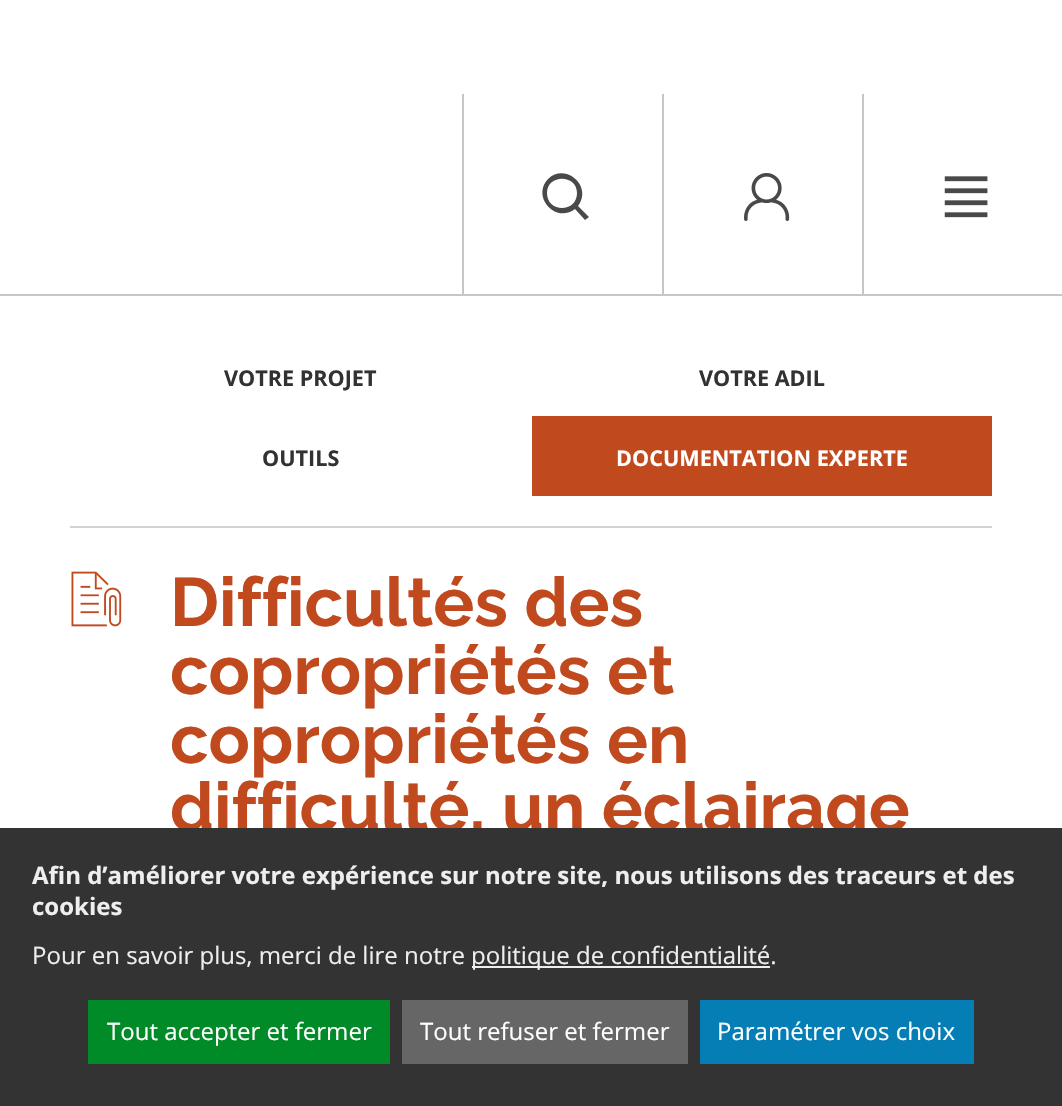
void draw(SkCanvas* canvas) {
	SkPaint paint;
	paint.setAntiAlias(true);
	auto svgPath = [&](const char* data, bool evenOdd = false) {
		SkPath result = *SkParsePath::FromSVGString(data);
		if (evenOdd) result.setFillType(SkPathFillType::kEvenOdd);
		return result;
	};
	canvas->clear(0xffffffff);
	paint.setColor(0xffc6c6c6);
	canvas->drawRect(SkRect::MakeXYWH(0, 294, 1062, 2), paint);
	canvas->drawRect(SkRect::MakeXYWH(462, 94, 2, 200), paint);
	paint.setColor(0xff494949);
	canvas->drawPath(svgPath("M585 220L575 209C556 224 531 197 548 179C566 162 593 187 578 206L589 217ZM577 193C577 174 547 174 547 193C547 213 577 213 577 193Z"), paint);
	paint.setColor(0xffc6c6c6);
	canvas->drawRect(SkRect::MakeXYWH(662, 94, 2, 200), paint);
	canvas->drawImageRect(SkImages::DeferredFromEncodedData(SkData::MakeFromFileName("img1.png")), SkRect::MakeXYWH(744, 173, 46, 48), SkSamplingOptions());
	canvas->drawRect(SkRect::MakeXYWH(862, 94, 2, 200), paint);
	canvas->drawImageRect(SkImages::DeferredFromEncodedData(SkData::MakeFromFileName("img2.png")), SkRect::MakeXYWH(944, 176, 44, 42), SkSamplingOptions());
	paint.setColor(0xffd3d3d3);
	canvas->drawRect(SkRect::MakeXYWH(70, 526, 922, 2), paint);
	SkFont f1(fontMgr->matchFamilyStyle("Open Sans", SkFontStyle::Bold()), 21.6);
	f1.setSubpixel(true);
	paint.setColor(0xff323232);
	canvas->drawString("VOTRE PROJET", 224, 386, f1, paint);
	canvas->drawString("VOTRE ADIL", 699, 386, f1, paint);
	canvas->drawString("OUTILS", 262, 466, f1, paint);
	paint.setColor(0xffc0491d);
	canvas->drawRect(SkRect::MakeXYWH(532, 416, 460, 80), paint);
	paint.setColor(0xffffffff);
	canvas->drawString("DOCUMENTATION EXPERTE", 616, 466, f1, paint);
	canvas->drawImageRect(SkImages::DeferredFromEncodedData(SkData::MakeFromFileName("img3.png")), SkRect::MakeXYWH(71, 571, 51, 56), SkSamplingOptions());
	SkFont f2(fontMgr->matchFamilyStyle("Raleway", SkFontStyle(100, SkFontStyle::kNormal_Width, SkFontStyle::kUpright_Slant)), 68.4);
	f2.setSubpixel(true);
	paint.setColor(0xffc0491d);
	canvas->drawString("Difficultés des", 170, 626, f2, paint);
	canvas->drawString("copropriétés et", 170, 694, f2, paint);
	canvas->drawString("copropriétés en", 170, 763, f2, paint);
	canvas->drawString("difficulté, un éclairage", 170, 831, f2, paint);
	paint.setColor(0xff333333);
	canvas->drawRect(SkRect::MakeXYWH(0, 828, 1062, 278), paint);
	SkFont f3(fontMgr->matchFamilyStyle("Open Sans", SkFontStyle::Bold()), 24);
	f3.setSubpixel(true);
	paint.setColor(0xffeeeeee);
	canvas->drawString("Afin d’améliorer votre expérience sur notre site, nous utilisons des traceurs et des", 32, 884, f3, paint);
	canvas->drawString("cookies", 32, 915, f3, paint);
	SkFont f4(fontMgr->matchFamilyStyle("Open Sans", SkFontStyle::Normal()), 24);
	f4.setSubpixel(true);
	canvas->drawString("Pour en savoir plus, merci de lire notre", 32, 964, f4, paint);
	canvas->drawRect(SkRect::MakeXYWH(472, 966, 298, 2), paint);
	canvas->drawString("politique de confidentialité.", 471, 964, f4, paint);
	paint.setColor(0xff008a28);
	canvas->drawRect(SkRect::MakeXYWH(88, 1000, 302, 64), paint);
	paint.setColor(0xffffffff);
	canvas->drawString("Tout accepter et fermer", 107, 1040, f4, paint);
	paint.setColor(0xff666666);
	canvas->drawRect(SkRect::MakeXYWH(402, 1000, 286, 64), paint);
	paint.setColor(0xffffffff);
	canvas->drawString("Tout refuser et fermer", 420, 1040, f4, paint);
	paint.setColor(0xff057eb6);
	canvas->drawRect(SkRect::MakeXYWH(700, 1000, 274, 64), paint);
	paint.setColor(0xffffffff);
	canvas->drawString("Paramétrer vos choix", 717, 1040, f4, paint);
}
